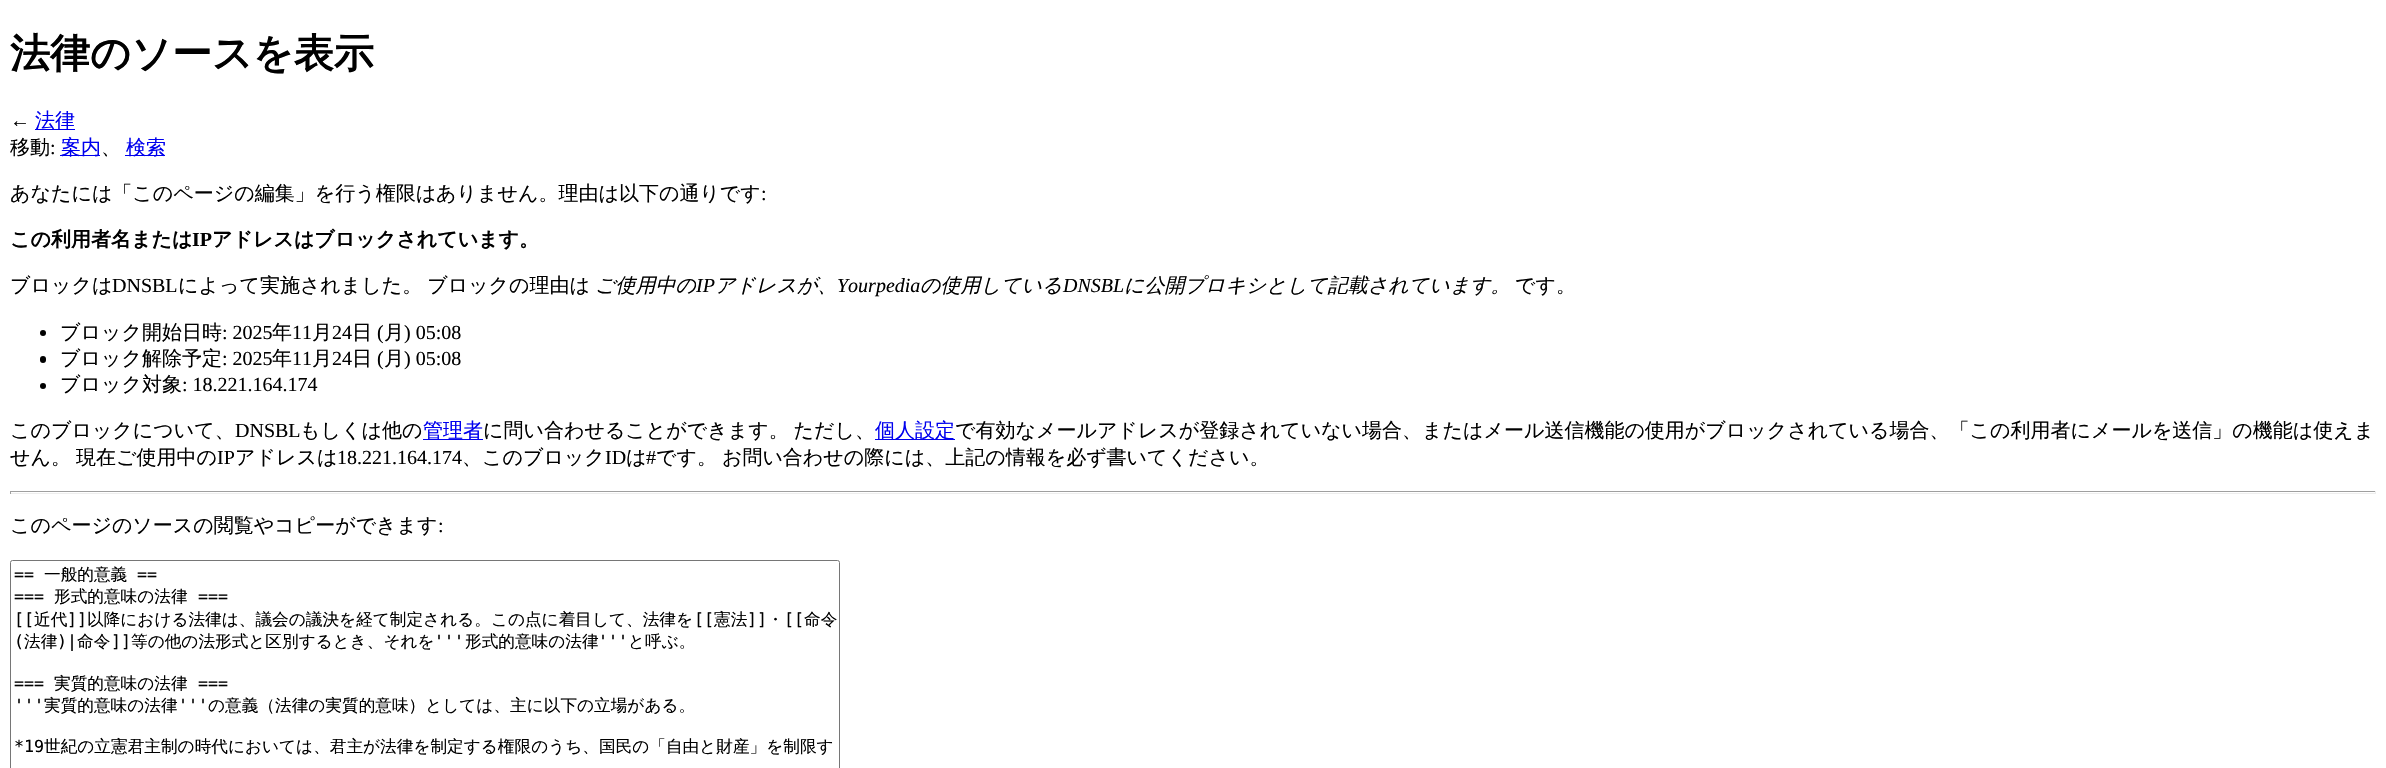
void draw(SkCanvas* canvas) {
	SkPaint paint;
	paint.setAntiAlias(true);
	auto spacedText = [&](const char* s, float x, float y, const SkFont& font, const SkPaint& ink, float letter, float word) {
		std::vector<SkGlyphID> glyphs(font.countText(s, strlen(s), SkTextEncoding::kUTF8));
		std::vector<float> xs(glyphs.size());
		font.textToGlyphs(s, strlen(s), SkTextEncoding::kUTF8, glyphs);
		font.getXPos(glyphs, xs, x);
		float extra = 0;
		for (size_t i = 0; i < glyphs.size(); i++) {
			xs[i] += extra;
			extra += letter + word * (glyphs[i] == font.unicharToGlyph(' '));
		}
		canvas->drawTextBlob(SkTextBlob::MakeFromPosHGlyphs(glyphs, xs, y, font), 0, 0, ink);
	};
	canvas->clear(0xffffffff);
	SkFont f1(fontMgr->matchFamilyStyle("WenQuanYi Zen Hei", SkFontStyle::Bold()), 40);
	f1.setSubpixel(true);
	paint.setColor(0xff000000);
	canvas->drawString("法律のソースを表示", 10, 67, f1, paint);
	SkFont f2(fontMgr->matchFamilyStyle("Liberation Serif", SkFontStyle::Normal()), 20);
	f2.setSubpixel(true);
	canvas->drawString("←", 10, 127, f2, paint);
	paint.setColor(0xff0000ee);
	canvas->drawRect(SkRect::MakeXYWH(35, 129, 40, 1), paint);
	SkFont f3(fontMgr->matchFamilyStyle("WenQuanYi Zen Hei", SkFontStyle(500, SkFontStyle::kNormal_Width, SkFontStyle::kUpright_Slant)), 20);
	f3.setSubpixel(true);
	canvas->drawString("法律", 35, 127, f3, paint);
	paint.setColor(0xff000000);
	canvas->drawString("移動", 10, 154, f3, paint);
	canvas->drawString(":", 50, 154, f2, paint);
	paint.setColor(0xff0000ee);
	canvas->drawRect(SkRect::MakeXYWH(60, 155, 40, 1), paint);
	canvas->drawString("案内", 61, 154, f3, paint);
	paint.setColor(0xff000000);
	canvas->drawString("、", 101, 154, f3, paint);
	paint.setColor(0xff0000ee);
	canvas->drawRect(SkRect::MakeXYWH(125, 155, 40, 1), paint);
	canvas->drawString("検索", 126, 154, f3, paint);
	paint.setColor(0xff000000);
	canvas->drawString("あなたには「このページの編集」を行う権限はありません。理由は以下の通りです", 10, 200, f3, paint);
	canvas->drawString(":", 761, 200, f2, paint);
	SkFont f4(fontMgr->matchFamilyStyle("WenQuanYi Zen Hei", SkFontStyle::Bold()), 20);
	f4.setSubpixel(true);
	canvas->drawString("この利用者名または", 10, 246, f4, paint);
	SkFont f5(fontMgr->matchFamilyStyle("Liberation Serif", SkFontStyle::Bold()), 20);
	f5.setSubpixel(true);
	canvas->drawString("IP", 192, 246, f5, paint);
	canvas->drawString("アドレスはブロックされています。", 212, 246, f4, paint);
	canvas->drawString("ブロックは", 10, 292, f3, paint);
	canvas->drawString("DNSBL", 112, 292, f2, paint);
	spacedText("によって実施されました。 ブロックの理由は", 178, 292, f3, paint, 0, -1);
	SkFont f6(fontMgr->matchFamilyStyle("WenQuanYi Zen Hei", SkFontStyle(500, SkFontStyle::kNormal_Width, SkFontStyle::kItalic_Slant)), 20);
	f6.setSubpixel(true);
	canvas->drawString("ご使用中の", 595, 292, f6, paint);
	SkFont f7(fontMgr->matchFamilyStyle("Liberation Serif", SkFontStyle::Italic()), 20);
	f7.setSubpixel(true);
	canvas->drawString("IP", 696, 292, f7, paint);
	canvas->drawString("アドレスが、", 715, 292, f6, paint);
	canvas->drawString("Yourpedia", 837, 292, f7, paint);
	canvas->drawString("の使用している", 920, 292, f6, paint);
	canvas->drawString("DNSBL", 1063, 292, f7, paint);
	canvas->drawString("に公開プロキシとして記載されています。", 1124, 292, f6, paint);
	canvas->drawString("です。", 1515, 292, f3, paint);
	canvas->drawCircle(43, 333, 3, paint);
	canvas->drawString("ブロック開始日時", 60, 339, f3, paint);
	canvas->drawString(": 2025", 222, 339, f2, paint);
	canvas->drawString("年", 272, 339, f3, paint);
	canvas->drawString("11", 292, 339, f2, paint);
	canvas->drawString("月", 312, 339, f3, paint);
	canvas->drawString("24", 332, 339, f2, paint);
	canvas->drawString("日", 352, 339, f3, paint);
	canvas->drawString("(", 377, 339, f2, paint);
	canvas->drawString("月", 384, 339, f3, paint);
	canvas->drawString(") 05:08", 404, 339, f2, paint);
	canvas->drawRoundRect(SkRect::MakeXYWH(40, 356, 6, 7), 3, 3, paint);
	canvas->drawString("ブロック解除予定", 60, 365, f3, paint);
	canvas->drawString(": 2025", 222, 365, f2, paint);
	canvas->drawString("年", 272, 365, f3, paint);
	canvas->drawString("11", 292, 365, f2, paint);
	canvas->drawString("月", 312, 365, f3, paint);
	canvas->drawString("24", 332, 365, f2, paint);
	canvas->drawString("日", 352, 365, f3, paint);
	canvas->drawString("(", 377, 365, f2, paint);
	canvas->drawString("月", 384, 365, f3, paint);
	canvas->drawString(") 05:08", 404, 365, f2, paint);
	canvas->drawCircle(43, 386, 3, paint);
	canvas->drawString("ブロック対象", 60, 391, f3, paint);
	canvas->drawString(": 18.221.164.174", 182, 391, f2, paint);
	canvas->drawString("このブロックについて、", 10, 437, f3, paint);
	canvas->drawString("DNSBL", 235, 437, f2, paint);
	canvas->drawString("もしくは他の", 300, 437, f3, paint);
	paint.setColor(0xff0000ee);
	canvas->drawRect(SkRect::MakeXYWH(423, 439, 60, 1), paint);
	canvas->drawString("管理者", 423, 437, f3, paint);
	paint.setColor(0xff000000);
	spacedText("に問い合わせることができます。 ただし、", 483, 437, f3, paint, 0, -1);
	paint.setColor(0xff0000ee);
	canvas->drawRect(SkRect::MakeXYWH(875, 439, 80, 1), paint);
	canvas->drawString("個人設定", 875, 437, f3, paint);
	paint.setColor(0xff000000);
	canvas->drawString("で有効なメールアドレスが登録されていない場合、またはメール送信機能の使用がブロックされている場合、「この利用者にメールを送信」の機能は使えま", 955, 437, f3, paint);
	spacedText("せん。 現在ご使用中の", 10, 464, f3, paint, 0, -1);
	canvas->drawString("IP", 217, 464, f2, paint);
	canvas->drawString("アドレスは", 235, 464, f3, paint);
	canvas->drawString("18.221.164.174", 337, 464, f2, paint);
	canvas->drawString("、このブロック", 462, 464, f3, paint);
	canvas->drawString("ID", 605, 464, f2, paint);
	canvas->drawString("は", 626, 464, f3, paint);
	canvas->drawString("#", 646, 464, f2, paint);
	spacedText("です。 お問い合わせの際には、上記の情報を必ず書いてください。", 656, 464, f3, paint, 0, -1);
	paint.setColor(0xff9f9f9f);
	canvas->drawRect(SkRect::MakeXYWH(10, 491, 2366, 1), paint);
	paint.setColor(0xffeeeeee);
	canvas->drawRect(SkRect::MakeXYWH(2375, 491, 1, 3), paint);
	canvas->drawRect(SkRect::MakeXYWH(10, 493, 2366, 1), paint);
	paint.setColor(0xff9f9f9f);
	canvas->drawRect(SkRect::MakeXYWH(10, 491, 1, 3), paint);
	paint.setColor(0xff000000);
	canvas->drawString("このページのソースの閲覧やコピーができます", 10, 532, f3, paint);
	canvas->drawString(":", 438, 532, f2, paint);
	paint.setStroke(true);
	paint.setStrokeWidth(1);
	paint.setColor(0xff767676);
	canvas->drawRoundRect(SkRect::MakeXYWH(10.5, 560.5, 829, 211), 2, 2, paint);
	SkFont f8(fontMgr->matchFamilyStyle("DejaVu Sans Mono", SkFontStyle::Normal()), 16.65);
	f8.setSubpixel(true);
	paint.setStroke(false);
	paint.setColor(0xff000000);
	canvas->drawString("==", 14, 580, f8, paint);
	SkFont f9(fontMgr->matchFamilyStyle("WenQuanYi Zen Hei", SkFontStyle(500, SkFontStyle::kNormal_Width, SkFontStyle::kUpright_Slant)), 16.65);
	f9.setSubpixel(true);
	canvas->drawString("一般的意義", 44, 580, f9, paint);
	canvas->drawString("==", 137, 580, f8, paint);
	canvas->drawString("===", 14, 602, f8, paint);
	canvas->drawString("形式的意味の法律", 54, 602, f9, paint);
	canvas->drawString("===", 198, 602, f8, paint);
	canvas->drawString("[[", 14, 625, f8, paint);
	canvas->drawString("近代", 34, 625, f9, paint);
	canvas->drawString("]]", 67, 625, f8, paint);
	canvas->drawString("以降における法律は、議会の議決を経て制定される。この点に着目して、法律を", 87, 625, f9, paint);
	canvas->drawString("[[", 694, 625, f8, paint);
	canvas->drawString("憲法", 714, 625, f9, paint);
	canvas->drawString("]]", 747, 625, f8, paint);
	canvas->drawString("・", 767, 625, f9, paint);
	canvas->drawString("[[", 784, 625, f8, paint);
	canvas->drawString("命令", 804, 625, f9, paint);
	canvas->drawString("(", 14, 647, f8, paint);
	canvas->drawString("法律", 24, 647, f9, paint);
	canvas->drawString(")|", 57, 647, f8, paint);
	canvas->drawString("命令", 77, 647, f9, paint);
	canvas->drawString("]]", 111, 647, f8, paint);
	canvas->drawString("等の他の法形式と区別するとき、それを", 131, 647, f9, paint);
	canvas->drawString("'''", 434, 647, f8, paint);
	canvas->drawString("形式的意味の法律", 465, 647, f9, paint);
	canvas->drawString("'''", 598, 647, f8, paint);
	canvas->drawString("と呼ぶ。", 628, 647, f9, paint);
	canvas->drawString("===", 14, 689, f8, paint);
	canvas->drawString("実質的意味の法律", 54, 689, f9, paint);
	canvas->drawString("===", 198, 689, f8, paint);
	canvas->drawString("'''", 14, 711, f8, paint);
	canvas->drawString("実質的意味の法律", 44, 711, f9, paint);
	canvas->drawString("'''", 178, 711, f8, paint);
	canvas->drawString("の意義（法律の実質的意味）としては、主に以下の立場がある。", 208, 711, f9, paint);
	canvas->drawString("*19", 14, 752, f8, paint);
	canvas->drawString("世紀の立憲君主制の時代においては、君主が法律を制定する権限のうち、国民の「自由と財産」を制限す", 44, 752, f9, paint);
}
